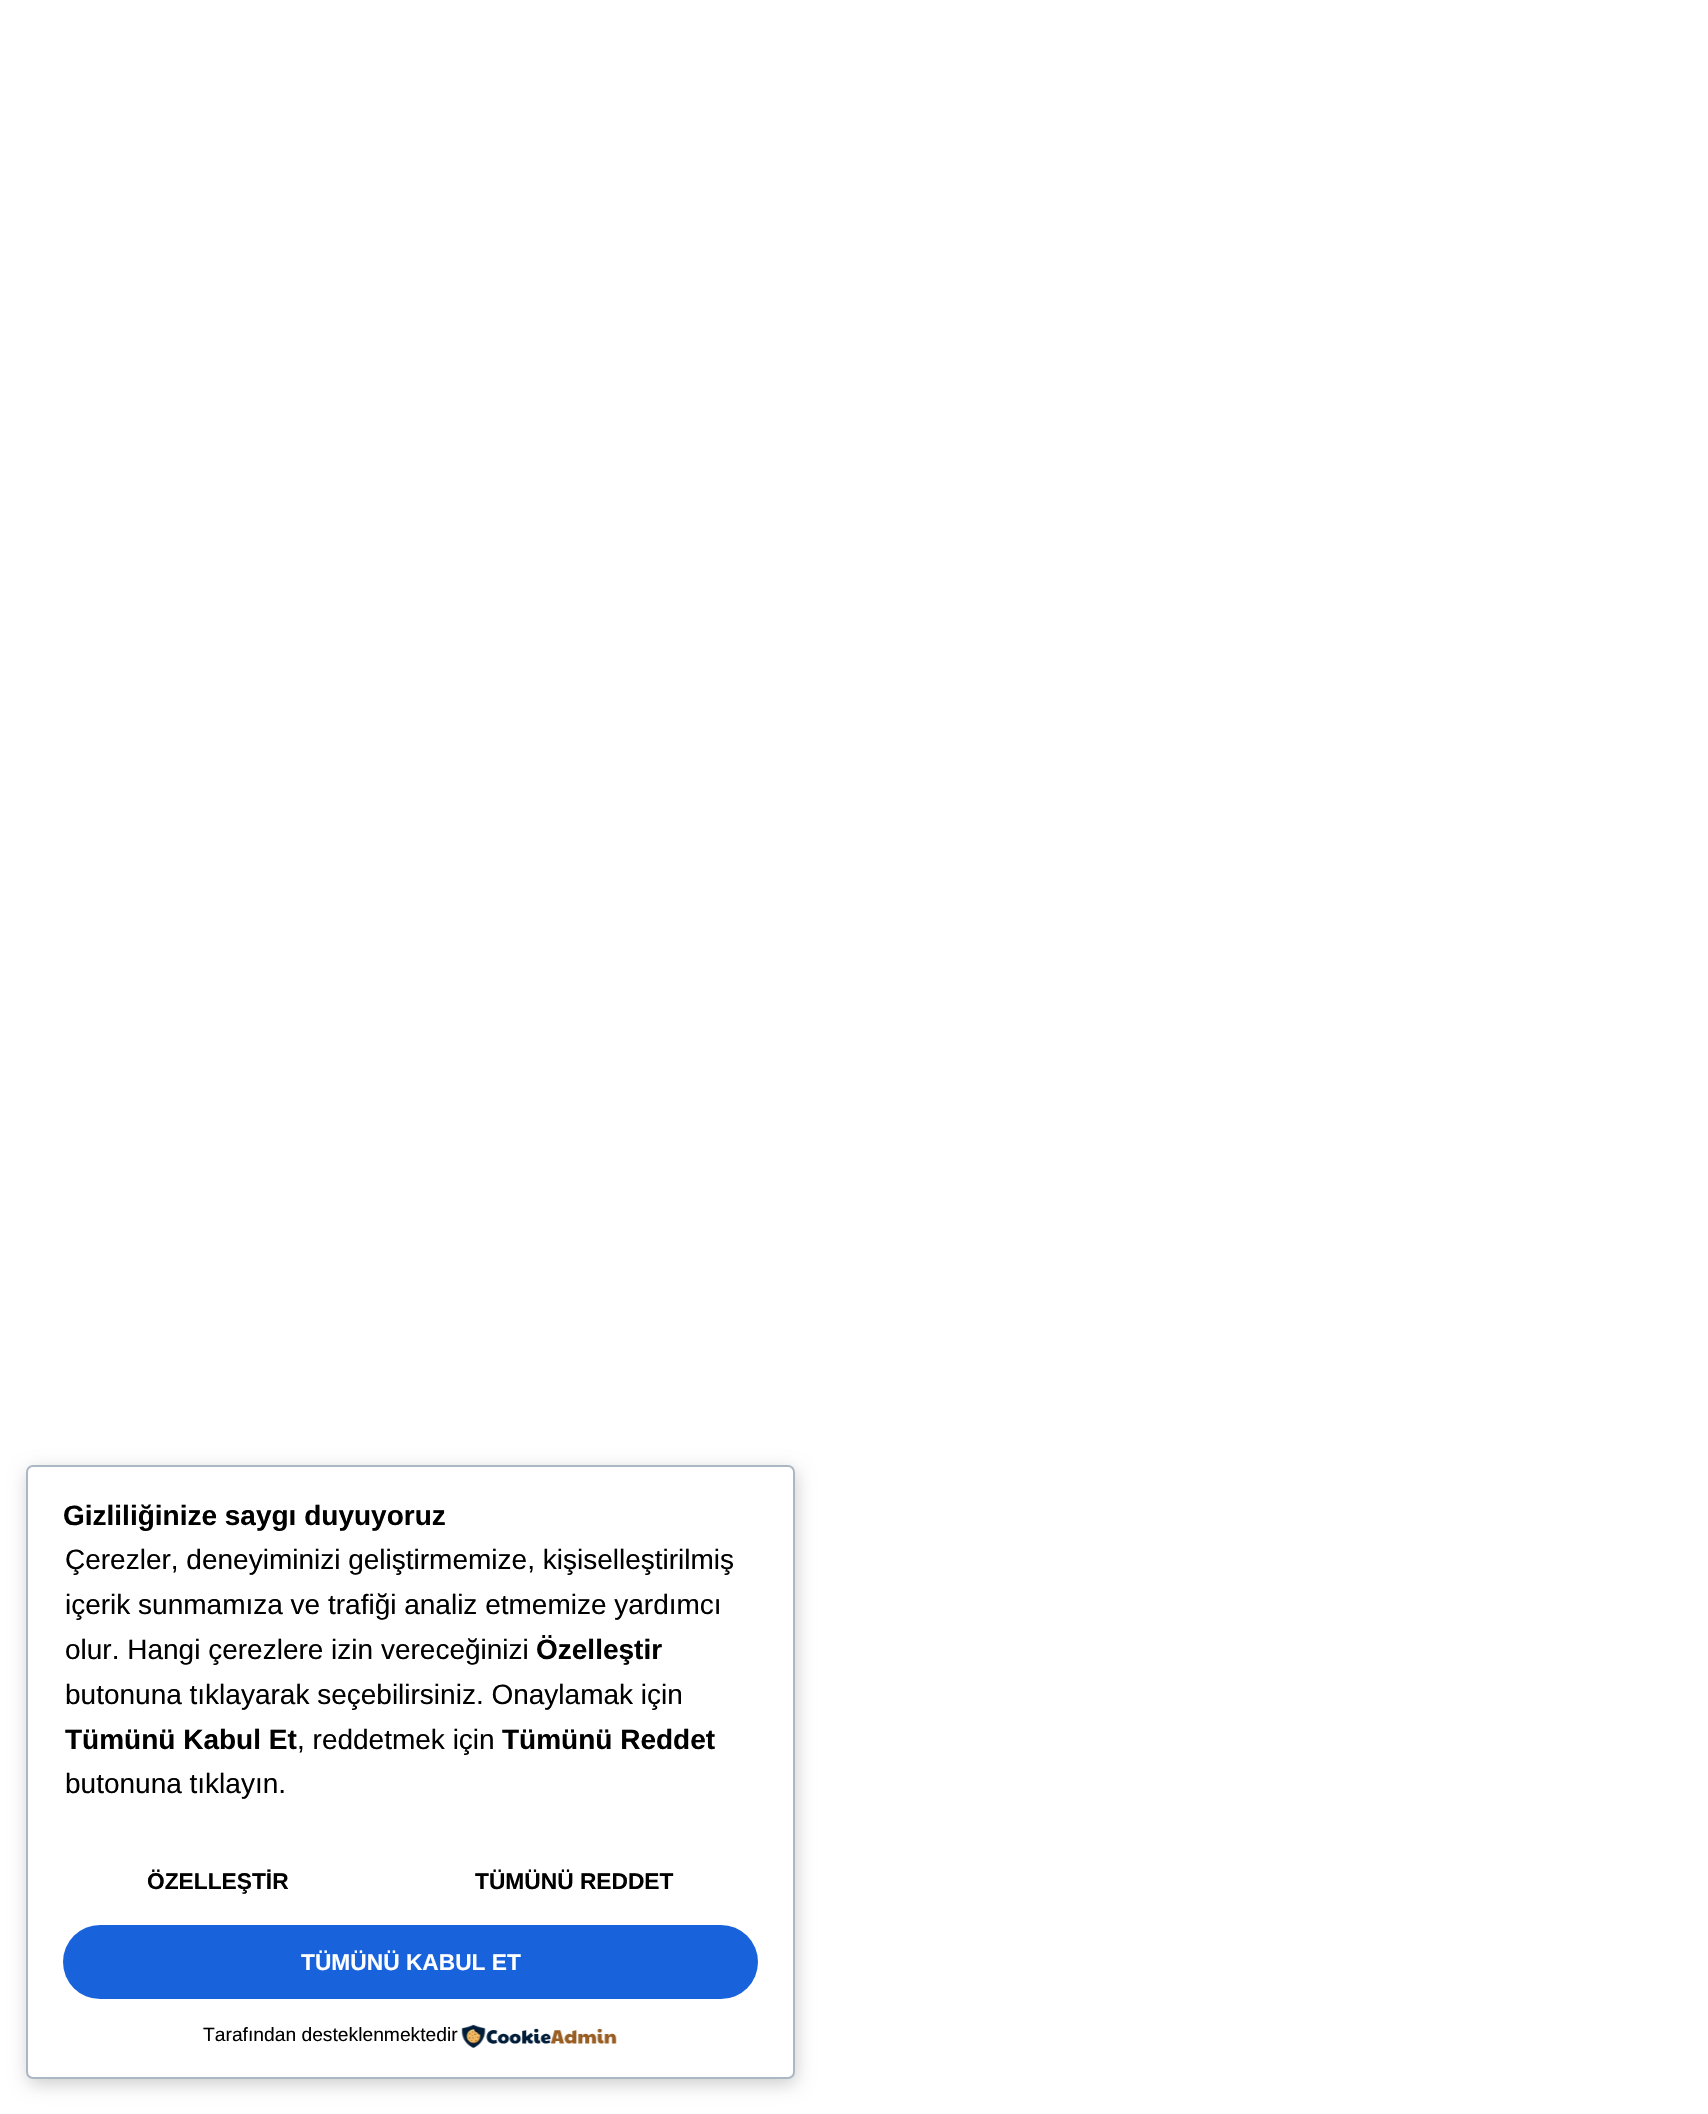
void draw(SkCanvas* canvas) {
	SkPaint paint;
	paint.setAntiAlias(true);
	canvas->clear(0xffffffff);
	paint.setColor(0x33000000);
	paint.setMaskFilter(SkMaskFilter::MakeBlur(kNormal_SkBlurStyle, 9));
	canvas->drawRoundRect(SkRect::MakeXYWH(28, 1470, 768, 614), 7, 7, paint);
	paint.setMaskFilter(nullptr);
	paint.setColor(0xffffffff);
	canvas->drawRoundRect(SkRect::MakeXYWH(27, 1466, 767, 612), 6, 6, paint);
	paint.setStroke(true);
	paint.setStrokeWidth(2);
	paint.setColor(0xffabb8c3);
	canvas->drawRoundRect(SkRect::MakeXYWH(27, 1466, 767, 612), 6, 6, paint);
	SkFont f1(fontMgr->matchFamilyStyle("Liberation Sans", SkFontStyle::Bold()), 28);
	f1.setSubpixel(true);
	paint.setStroke(false);
	paint.setColor(0xff000000);
	canvas->drawString("Gizliliğinize saygı duyuyoruz", 63, 1525, f1, paint);
	SkFont f2(fontMgr->matchFamilyStyle("Liberation Sans", SkFontStyle::Normal()), 28);
	f2.setSubpixel(true);
	canvas->drawString("Çerezler, deneyiminizi geliştirmemize, kişiselleştirilmiş", 65, 1569, f2, paint);
	canvas->drawString("içerik sunmamıza ve trafiği analiz etmemize yardımcı", 65, 1614, f2, paint);
	canvas->drawString("olur. Hangi çerezlere izin vereceğinizi", 65, 1659, f2, paint);
	canvas->drawString("Özelleştir", 536, 1659, f1, paint);
	canvas->drawString("butonuna tıklayarak seçebilirsiniz. Onaylamak için", 65, 1704, f2, paint);
	canvas->drawString("Tümünü Kabul Et", 65, 1749, f1, paint);
	canvas->drawString(", reddetmek için", 297, 1749, f2, paint);
	canvas->drawString("Tümünü Reddet", 502, 1749, f1, paint);
	canvas->drawString("butonuna tıklayın.", 65, 1793, f2, paint);
	SkFont f3(fontMgr->matchFamilyStyle("Liberation Sans", SkFontStyle::Bold()), 22.75);
	f3.setSubpixel(true);
	canvas->drawString("ÖZELLEŞTİR", 147, 1889, f3, paint);
	canvas->drawString("TÜMÜNÜ REDDET", 475, 1889, f3, paint);
	paint.setColor(0xff1863dc);
	canvas->drawRoundRect(SkRect::MakeXYWH(63, 1925, 695, 74), 37, 37, paint);
	paint.setColor(0xffffffff);
	canvas->drawString("TÜMÜNÜ KABUL ET", 301, 1970, f3, paint);
	SkFont f4(fontMgr->matchFamilyStyle("Liberation Sans", SkFontStyle::Normal()), 19.25);
	f4.setSubpixel(true);
	paint.setColor(0xff000000);
	canvas->drawString("Tarafından desteklenmektedir", 203, 2041, f4, paint);
	canvas->drawImageRect(SkImages::DeferredFromEncodedData(SkData::MakeFromFileName("img1.png")), SkRect::MakeXYWH(461, 2024, 156, 24), SkSamplingOptions());
}
